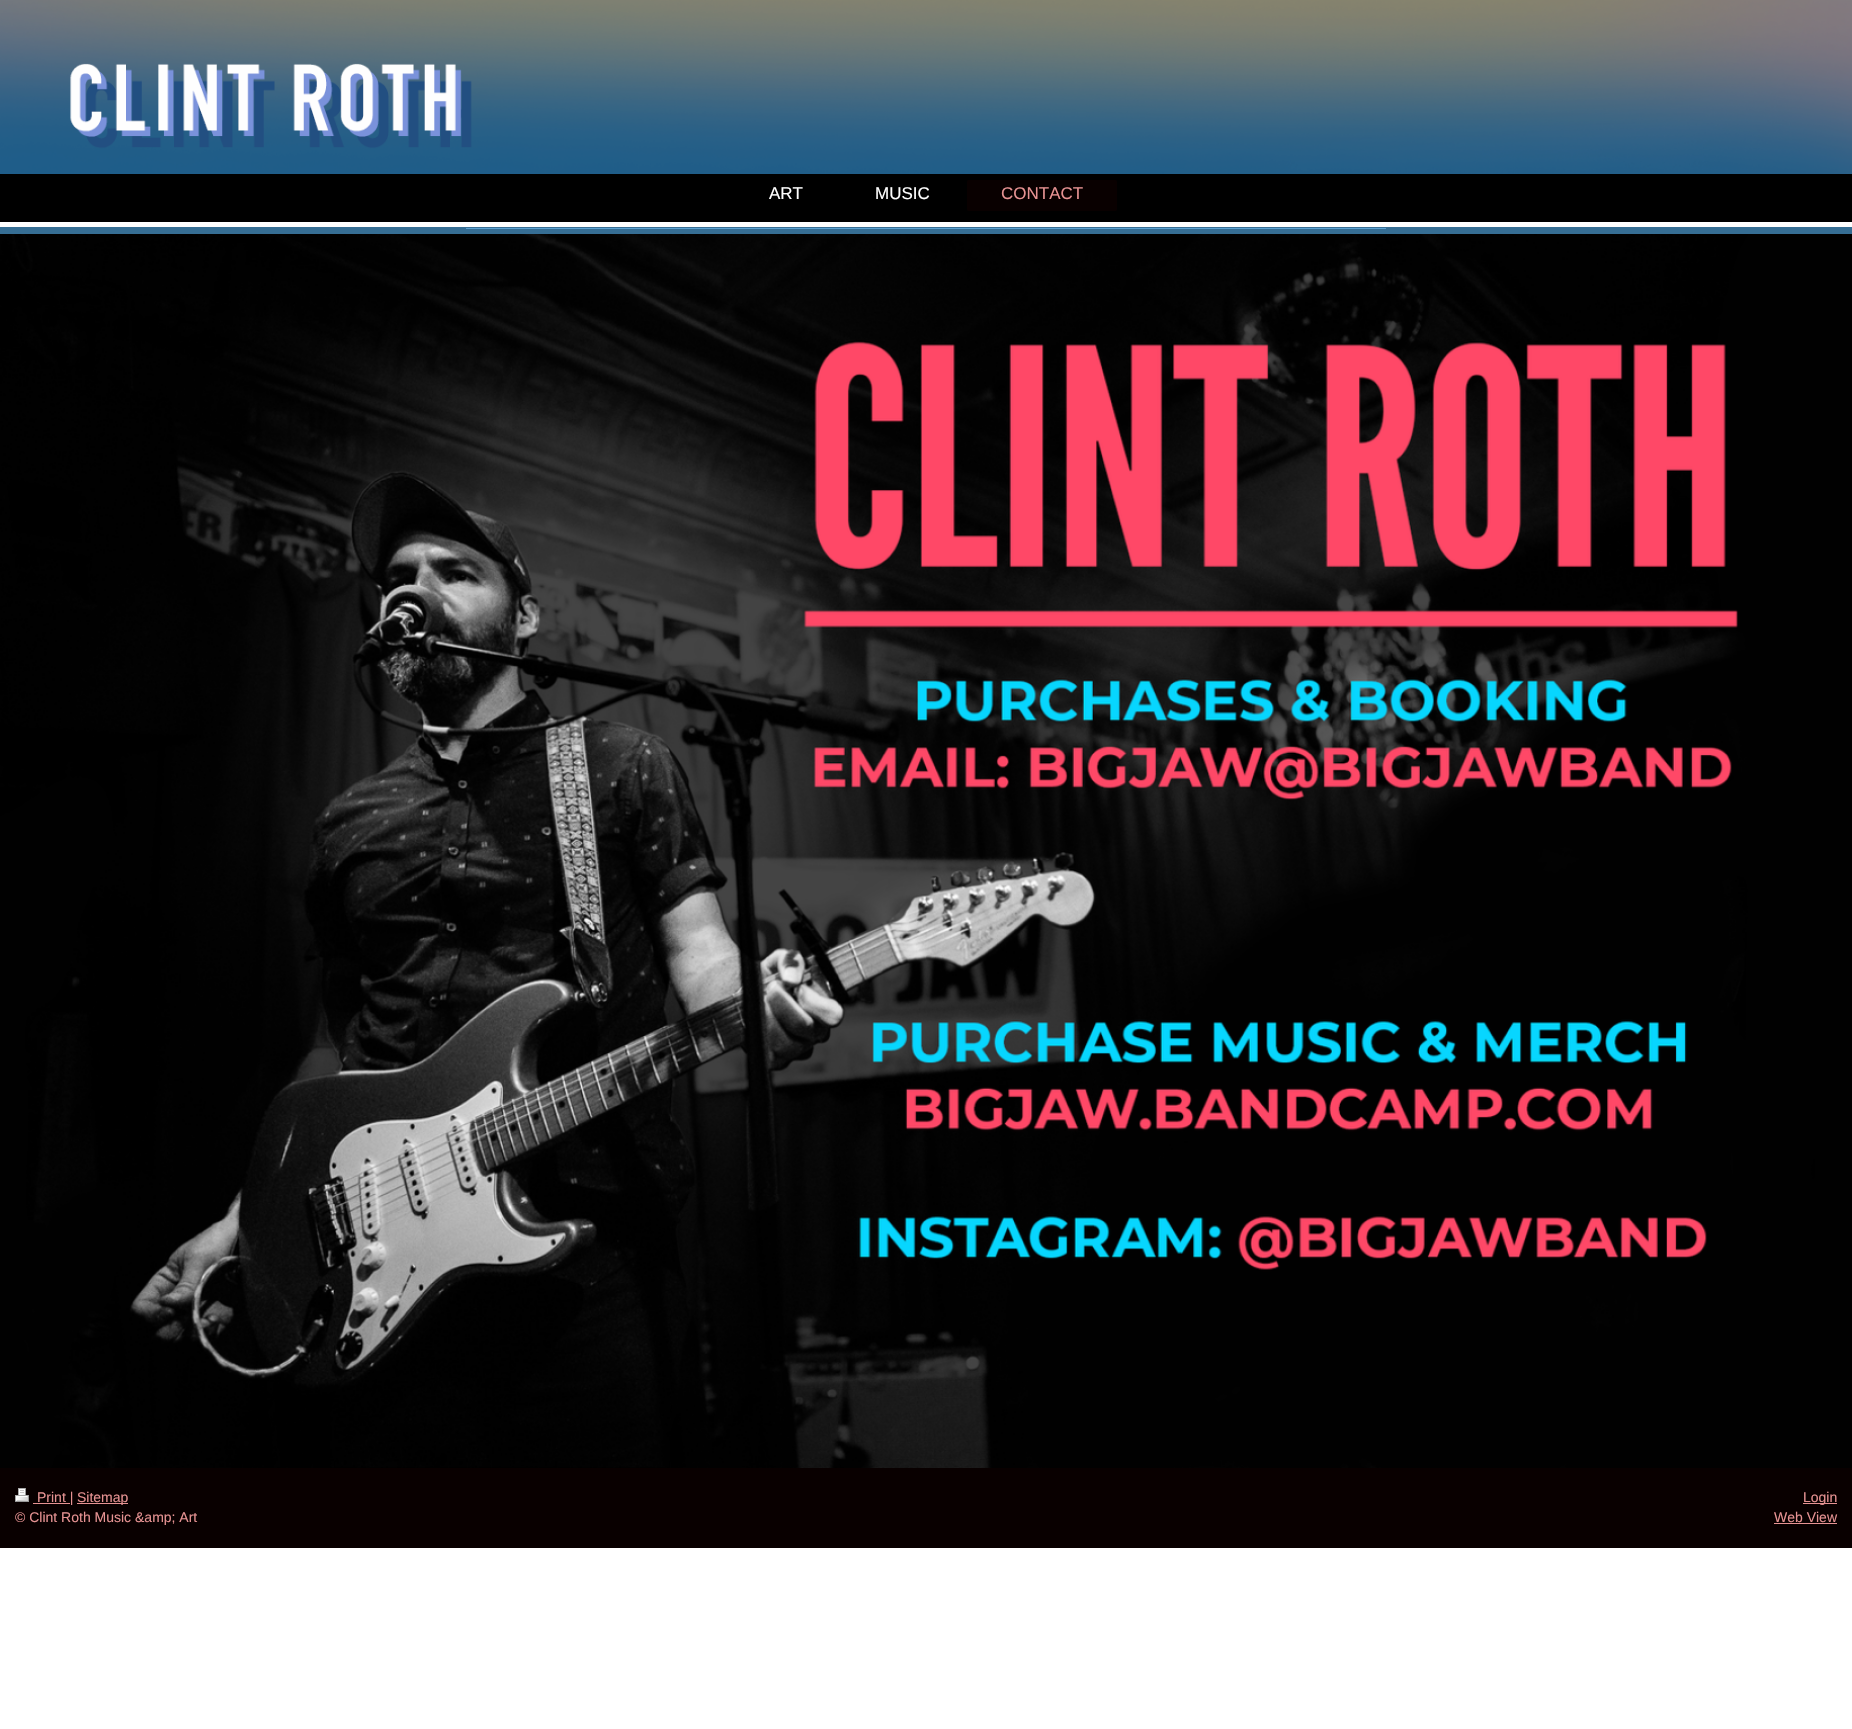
void draw(SkCanvas* canvas) {
	SkPaint paint;
	paint.setAntiAlias(true);
	canvas->clear(0xffffffff);
	paint.setColor(0xff000000);
	canvas->drawRect(SkRect::MakeXYWH(0, 174, 1852, 48), paint);
	canvas->drawImageRect(SkImages::DeferredFromEncodedData(SkData::MakeFromFileName("img1.png")), SkRect::MakeXYWH(0, 0, 1852, 174), SkSamplingOptions());
	SkFont f1(fontMgr->matchFamilyStyle("Liberation Sans", SkFontStyle::Normal()), 17);
	f1.setSubpixel(true);
	paint.setColor(0xffffffff);
	canvas->drawString("ART", 769, 199, f1, paint);
	canvas->drawString("MUSIC", 875, 199, f1, paint);
	paint.setColor(0xff090000);
	canvas->drawRoundRect(SkRect::MakeXYWH(967, 180, 150, 31), 2, 2, paint);
	paint.setColor(0xffe69292);
	canvas->drawString("CONTACT", 1001, 199, f1, paint);
	paint.setColor(0xff366e94);
	canvas->drawRect(SkRect::MakeXYWH(0, 227, 1852, 7), paint);
	paint.setColor(0xff5fa4d3);
	canvas->drawRect(SkRect::MakeXYWH(466, 228, 920, 1), paint);
	canvas->drawImageRect(SkImages::DeferredFromEncodedData(SkData::MakeFromFileName("img2.png")), SkRect::MakeXYWH(0, 234, 1852, 1234), SkSamplingOptions());
	paint.setColor(0xff090000);
	canvas->drawRect(SkRect::MakeXYWH(0, 1468, 1852, 80), paint);
	canvas->drawImageRect(SkImages::DeferredFromEncodedData(SkData::MakeFromFileName("img3.png")), SkRect::MakeXYWH(15, 1488, 14, 14), SkSamplingOptions());
	paint.setColor(0xffe69292);
	canvas->drawRect(SkRect::MakeXYWH(33, 1503, 37, 1), paint);
	SkFont f2(fontMgr->matchFamilyStyle("Liberation Sans", SkFontStyle::Normal()), 14);
	f2.setSubpixel(true);
	canvas->drawString("Print |", 37, 1502, f2, paint);
	canvas->drawRect(SkRect::MakeXYWH(77, 1503, 51, 1), paint);
	canvas->drawString("Sitemap", 77, 1502, f2, paint);
	canvas->drawString("© Clint Roth Music &amp; Art", 15, 1522, f2, paint);
	canvas->drawRect(SkRect::MakeXYWH(1803, 1503, 34, 1), paint);
	canvas->drawString("Login", 1803, 1502, f2, paint);
	canvas->drawString("Web View", 1774, 1522, f2, paint);
	canvas->drawRect(SkRect::MakeXYWH(1774, 1523, 63, 1), paint);
}
